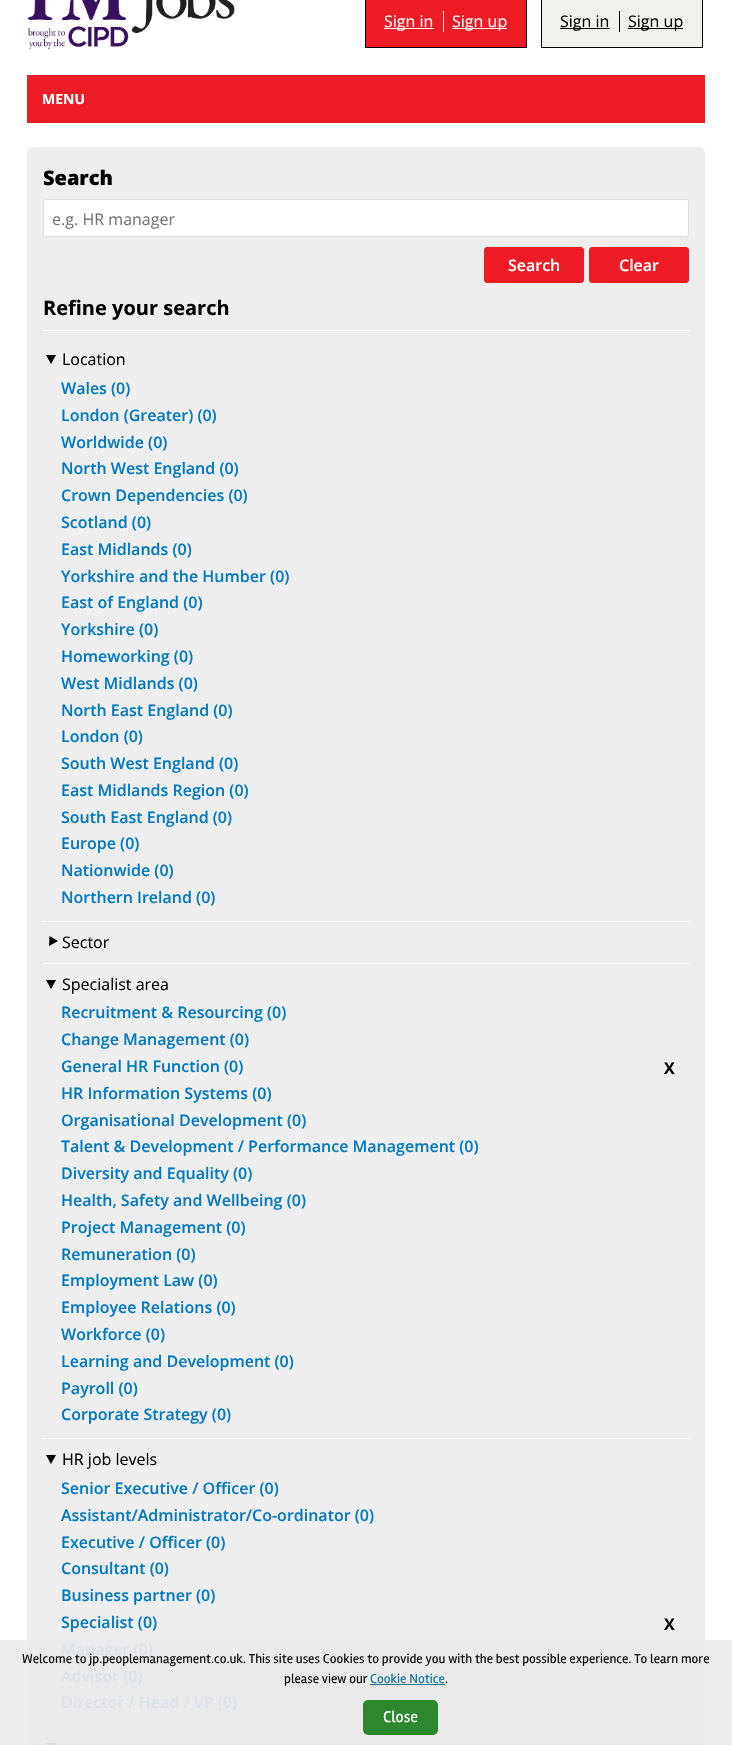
void draw(SkCanvas* canvas) {
	SkPaint paint;
	paint.setAntiAlias(true);
	auto svgPath = [&](const char* data, bool evenOdd = false) {
		SkPath result = *SkParsePath::FromSVGString(data);
		if (evenOdd) result.setFillType(SkPathFillType::kEvenOdd);
		return result;
	};
	canvas->clear(0xffffffff);
	paint.setColor(0xffebebeb);
	canvas->drawRect(SkRect::MakeXYWH(0, 1640, 732, 105), paint);
	canvas->drawImageRect(SkImages::DeferredFromEncodedData(SkData::MakeFromFileName("img1.png")), SkRect::MakeXYWH(27, 0, 208, 49), SkSamplingOptions());
	paint.setColor(0xffed1c24);
	canvas->drawRect(SkRect::MakeXYWH(365.5, -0.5, 161, 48), paint);
	paint.setStroke(true);
	paint.setStrokeWidth(1);
	paint.setColor(0xff000000);
	canvas->drawRect(SkRect::MakeXYWH(365.5, -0.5, 161, 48), paint);
	paint.setStroke(false);
	paint.setColor(0xffffffff);
	canvas->drawRect(SkRect::MakeXYWH(443, 11, 1, 21), paint);
	canvas->drawRect(SkRect::MakeXYWH(384, 28, 50, 1), paint);
	SkFont f1(fontMgr->matchFamilyStyle("Open Sans", SkFontStyle::Normal()), 16);
	f1.setSubpixel(true);
	canvas->drawString("Sign in", 384, 27, f1, paint);
	canvas->drawRect(SkRect::MakeXYWH(452, 28, 55, 1), paint);
	canvas->drawString("Sign up", 452, 27, f1, paint);
	paint.setColor(0xfff0f1ea);
	canvas->drawRect(SkRect::MakeXYWH(541.5, -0.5, 161, 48), paint);
	paint.setStroke(true);
	paint.setColor(0xff000000);
	canvas->drawRect(SkRect::MakeXYWH(541.5, -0.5, 161, 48), paint);
	paint.setStroke(false);
	canvas->drawRect(SkRect::MakeXYWH(619, 11, 1, 21), paint);
	canvas->drawRect(SkRect::MakeXYWH(560, 28, 50, 1), paint);
	canvas->drawString("Sign in", 560, 27, f1, paint);
	canvas->drawRect(SkRect::MakeXYWH(628, 28, 55, 1), paint);
	canvas->drawString("Sign up", 628, 27, f1, paint);
	paint.setColor(0xffed1c24);
	canvas->drawRect(SkRect::MakeXYWH(27, 75, 678, 48), paint);
	SkFont f2(fontMgr->matchFamilyStyle("Open Sans", SkFontStyle::Bold()), 14);
	f2.setSubpixel(true);
	paint.setColor(0xffffffff);
	canvas->drawString("MENU", 42, 104, f2, paint);
	paint.setColor(0xffeeeeee);
	canvas->drawRoundRect(SkRect::MakeXYWH(27, 147, 678, 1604), 6, 6, paint);
	paint.setColor(0xffeaeaea);
	canvas->drawRect(SkRect::MakeXYWH(27, 1640, 678, 105), paint);
	SkFont f3(fontMgr->matchFamilyStyle("Open Sans", SkFontStyle(800, SkFontStyle::kNormal_Width, SkFontStyle::kUpright_Slant)), 20);
	f3.setSubpixel(true);
	paint.setColor(0xff000000);
	canvas->drawString("Search", 43, 185, f3, paint);
	paint.setColor(0xffffffff);
	canvas->drawRoundRect(SkRect::MakeXYWH(43.5, 199.5, 645, 37), 2.5, 2.5, paint);
	paint.setStroke(true);
	paint.setColor(0xffdddddd);
	canvas->drawRoundRect(SkRect::MakeXYWH(43.5, 199.5, 645, 37), 2.5, 2.5, paint);
	paint.setStroke(false);
	paint.setColor(0xff757575);
	canvas->drawString("e.g. HR manager", 52, 225, f1, paint);
	paint.setColor(0xffed1c24);
	canvas->drawRoundRect(SkRect::MakeXYWH(484.5, 247.5, 99, 35), 2.5, 2.5, paint);
	paint.setStroke(true);
	canvas->drawRoundRect(SkRect::MakeXYWH(484.5, 247.5, 99, 35), 2.5, 2.5, paint);
	SkFont f4(fontMgr->matchFamilyStyle("Open Sans", SkFontStyle(600, SkFontStyle::kNormal_Width, SkFontStyle::kUpright_Slant)), 16);
	f4.setSubpixel(true);
	paint.setStroke(false);
	paint.setColor(0xffffffff);
	canvas->drawString("Search", 508, 271, f4, paint);
	paint.setColor(0xffed1c24);
	canvas->drawRoundRect(SkRect::MakeXYWH(589.5, 247.5, 99, 35), 2.5, 2.5, paint);
	paint.setStroke(true);
	canvas->drawRoundRect(SkRect::MakeXYWH(589.5, 247.5, 99, 35), 2.5, 2.5, paint);
	paint.setStroke(false);
	paint.setColor(0xffffffff);
	canvas->drawString("Clear", 619, 271, f4, paint);
	canvas->drawRect(SkRect::MakeXYWH(43, 330, 646, 1), paint);
	SkFont f5(fontMgr->matchFamilyStyle("Open Sans", SkFontStyle::Bold()), 20);
	f5.setSubpixel(true);
	paint.setColor(0xff000000);
	canvas->drawString("Refine your search", 43, 315, f5, paint);
	canvas->drawPath(svgPath("M46 355H56L51 364Z"), paint);
	canvas->drawString("Location", 62, 365, f1, paint);
	paint.setColor(0xffffffff);
	canvas->drawRect(SkRect::MakeXYWH(43, 921, 646, 1), paint);
	paint.setColor(0xff0079c0);
	canvas->drawString("Wales (0)", 61, 394, f4, paint);
	canvas->drawString("London (Greater) (0)", 61, 421, f4, paint);
	canvas->drawString("Worldwide (0)", 61, 448, f4, paint);
	canvas->drawString("North West England (0)", 61, 474, f4, paint);
	canvas->drawString("Crown Dependencies (0)", 61, 501, f4, paint);
	canvas->drawString("Scotland (0)", 61, 528, f4, paint);
	canvas->drawString("East Midlands (0)", 61, 555, f4, paint);
	canvas->drawString("Yorkshire and the Humber (0)", 61, 582, f4, paint);
	canvas->drawString("East of England (0)", 61, 608, f4, paint);
	canvas->drawString("Yorkshire (0)", 61, 635, f4, paint);
	canvas->drawString("Homeworking (0)", 61, 662, f4, paint);
	canvas->drawString("West Midlands (0)", 61, 689, f4, paint);
	canvas->drawString("North East England (0)", 61, 716, f4, paint);
	canvas->drawString("London (0)", 61, 742, f4, paint);
	canvas->drawString("South West England (0)", 61, 769, f4, paint);
	canvas->drawString("East Midlands Region (0)", 61, 796, f4, paint);
	canvas->drawString("South East England (0)", 61, 823, f4, paint);
	canvas->drawString("Europe (0)", 61, 849, f4, paint);
	canvas->drawString("Nationwide (0)", 61, 876, f4, paint);
	canvas->drawString("Northern Ireland (0)", 61, 903, f4, paint);
	paint.setColor(0xffffffff);
	canvas->drawRect(SkRect::MakeXYWH(43, 963, 646, 1), paint);
	paint.setColor(0xff000000);
	canvas->drawPath(svgPath("M49.5 936L58 941L49 946ZM46 980H56L51 989Z"), paint);
	canvas->drawString("Sector", 62, 948, f1, paint);
	canvas->drawString("Specialist area", 62, 990, f1, paint);
	paint.setColor(0xffffffff);
	canvas->drawRect(SkRect::MakeXYWH(43, 1438, 646, 1), paint);
	paint.setColor(0xff0079c0);
	canvas->drawString("Recruitment & Resourcing (0)", 61, 1018, f4, paint);
	canvas->drawString("Change Management (0)", 61, 1045, f4, paint);
	canvas->drawString("General HR Function (0)", 61, 1072, f4, paint);
	SkFont f6(fontMgr->matchFamilyStyle("Open Sans", SkFontStyle::Bold()), 16);
	f6.setSubpixel(true);
	paint.setColor(0xff000000);
	canvas->drawString("X", 664, 1074, f6, paint);
	paint.setColor(0xff0079c0);
	canvas->drawString("HR Information Systems (0)", 61, 1099, f4, paint);
	canvas->drawString("Organisational Development (0)", 61, 1126, f4, paint);
	canvas->drawString("Talent & Development / Performance Management (0)", 61, 1152, f4, paint);
	canvas->drawString("Diversity and Equality (0)", 61, 1179, f4, paint);
	canvas->drawString("Health, Safety and Wellbeing (0)", 61, 1206, f4, paint);
	canvas->drawString("Project Management (0)", 61, 1233, f4, paint);
	canvas->drawString("Remuneration (0)", 61, 1260, f4, paint);
	canvas->drawString("Employment Law (0)", 61, 1286, f4, paint);
	canvas->drawString("Employee Relations (0)", 61, 1313, f4, paint);
	canvas->drawString("Workforce (0)", 61, 1340, f4, paint);
	canvas->drawString("Learning and Development (0)", 61, 1367, f4, paint);
	canvas->drawString("Payroll (0)", 61, 1394, f4, paint);
	canvas->drawString("Corporate Strategy (0)", 61, 1420, f4, paint);
	paint.setColor(0xff000000);
	canvas->drawPath(svgPath("M46 1455H56L51 1464Z"), paint);
	canvas->drawString("HR job levels", 62, 1465, f1, paint);
	paint.setColor(0xff0079c0);
	canvas->drawString("Senior Executive / Officer (0)", 61, 1494, f4, paint);
	canvas->drawString("Assistant/Administrator/Co-ordinator (0)", 61, 1521, f4, paint);
	canvas->drawString("Executive / Officer (0)", 61, 1548, f4, paint);
	canvas->drawString("Consultant (0)", 61, 1574, f4, paint);
	canvas->drawString("Business partner (0)", 61, 1601, f4, paint);
	canvas->drawString("Specialist (0)", 61, 1628, f4, paint);
	paint.setColor(0xff000000);
	canvas->drawString("X", 664, 1630, f6, paint);
	paint.setColor(0xffdae2e7);
	canvas->drawString("Manager (0)", 61, 1655, f4, paint);
	canvas->drawString("Advisor (0)", 61, 1682, f4, paint);
	canvas->drawString("Director / Head / VP (0)", 61, 1708, f4, paint);
	paint.setColor(0xffdadada);
	canvas->drawPath(svgPath("M46 1743H56L51 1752Z"), paint);
	SkFont f7(fontMgr->matchFamilyStyle("Rambla", SkFontStyle::Normal()), 13.3);
	f7.setSubpixel(true);
	paint.setColor(0xff101010);
	canvas->drawString("Welcome to jp.peoplemanagement.co.uk. This site uses Cookies to provide you with the best possible experience. To learn more", 22, 1663, f7, paint);
	canvas->drawString("please view our", 284, 1683, f7, paint);
	paint.setColor(0xff167399);
	canvas->drawString("Cookie Notice", 370, 1683, f7, paint);
	canvas->drawRect(SkRect::MakeXYWH(370, 1684, 75, 1), paint);
	paint.setColor(0xff101010);
	canvas->drawString(".", 445, 1683, f7, paint);
	paint.setColor(0xff2c882c);
	canvas->drawRoundRect(SkRect::MakeXYWH(363, 1700, 75, 35), 5, 5, paint);
	SkFont f8(fontMgr->matchFamilyStyle("Rambla", SkFontStyle::Normal()), 16);
	f8.setSubpixel(true);
	paint.setColor(0xffffffff);
	canvas->drawString("Close", 383, 1722, f8, paint);
}
